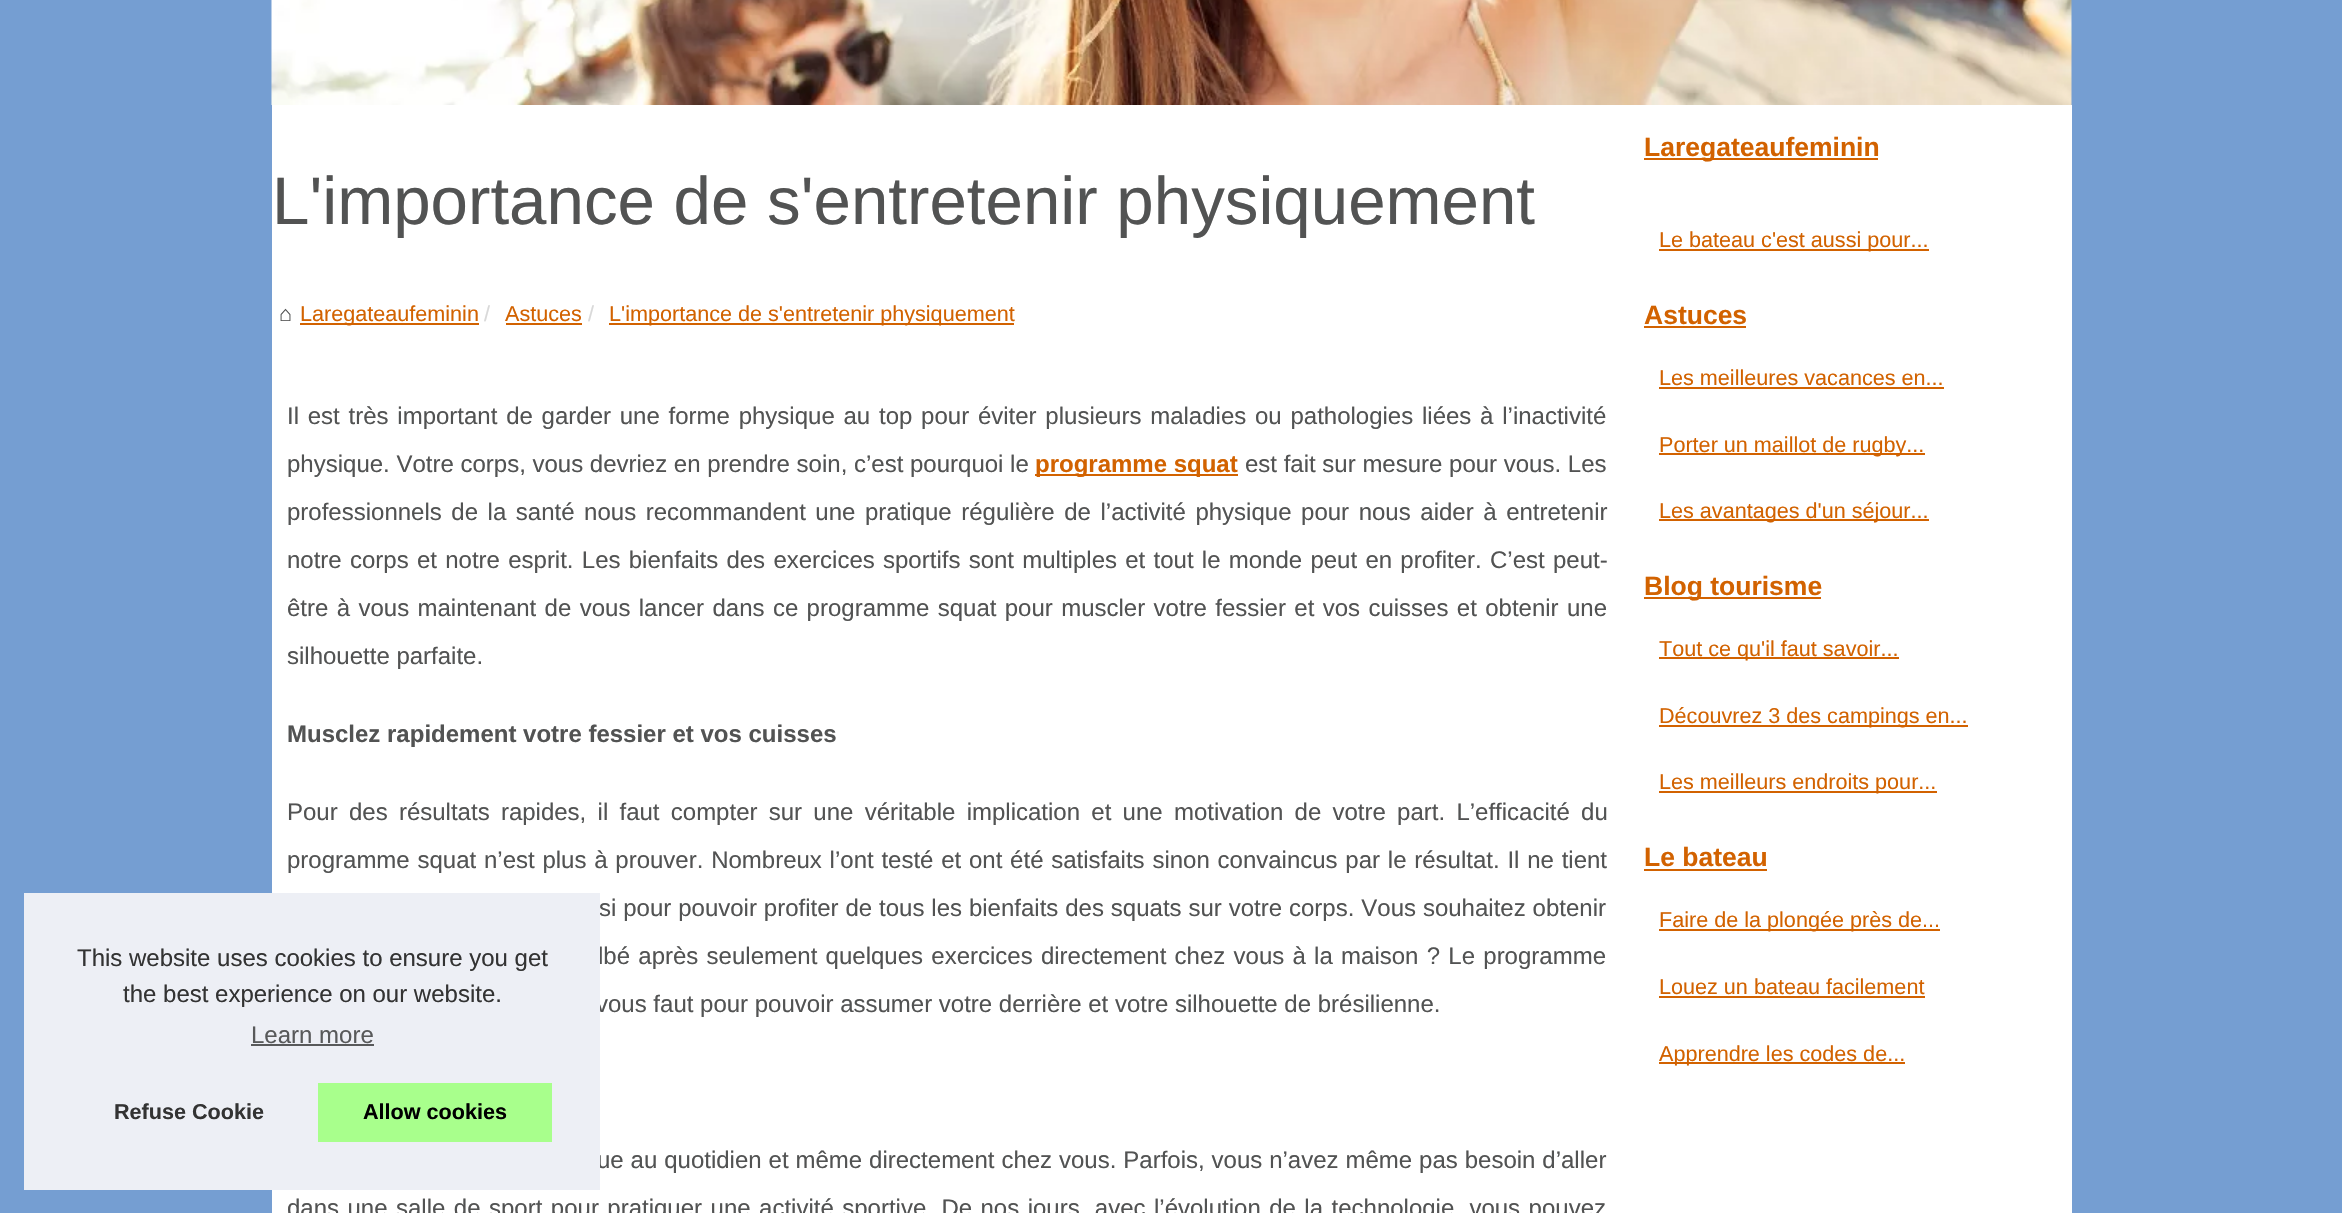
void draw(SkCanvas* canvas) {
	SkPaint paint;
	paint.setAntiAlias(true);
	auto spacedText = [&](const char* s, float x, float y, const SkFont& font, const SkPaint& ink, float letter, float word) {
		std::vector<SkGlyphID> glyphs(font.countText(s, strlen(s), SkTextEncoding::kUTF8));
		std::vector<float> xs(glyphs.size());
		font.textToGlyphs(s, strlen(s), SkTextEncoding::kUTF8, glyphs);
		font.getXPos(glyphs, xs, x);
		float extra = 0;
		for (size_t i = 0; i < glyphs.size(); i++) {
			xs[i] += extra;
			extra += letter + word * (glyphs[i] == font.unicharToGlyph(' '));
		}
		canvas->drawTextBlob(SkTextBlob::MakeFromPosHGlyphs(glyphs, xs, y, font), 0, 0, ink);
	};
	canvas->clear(0xff759ed2);
	canvas->drawImageRect(SkImages::DeferredFromEncodedData(SkData::MakeFromFileName("img1.png")), SkRect::MakeXYWH(271, 0, 1801, 105), SkSamplingOptions());
	paint.setColor(0xffffffff);
	canvas->drawRect(SkRect::MakeXYWH(272, 105, 1800, 1108), paint);
	SkFont f1(fontMgr->matchFamilyStyle("Liberation Sans", SkFontStyle::Normal()), 67.25);
	f1.setSubpixel(true);
	paint.setColor(0xff525353);
	canvas->drawString("L'importance de s'entretenir physiquement", 272, 224, f1, paint);
	SkFont f2(fontMgr->matchFamilyStyle("Liberation Sans", SkFontStyle::Normal()), 21.6);
	f2.setSubpixel(true);
	canvas->drawString("⌂", 279, 321, f2, paint);
	paint.setColor(0xffd26200);
	canvas->drawRect(SkRect::MakeXYWH(300, 323, 179, 2), paint);
	canvas->drawString("Laregateaufeminin", 300, 321, f2, paint);
	paint.setColor(0xffd9d9d9);
	canvas->drawString("/", 484, 321, f2, paint);
	paint.setColor(0xffd26200);
	canvas->drawString("Astuces", 505, 321, f2, paint);
	canvas->drawRect(SkRect::MakeXYWH(506, 323, 76, 2), paint);
	paint.setColor(0xffd9d9d9);
	canvas->drawString("/", 588, 321, f2, paint);
	paint.setColor(0xffd26200);
	canvas->drawRect(SkRect::MakeXYWH(609, 323, 405, 2), paint);
	canvas->drawString("L'importance de s'entretenir physiquement", 609, 321, f2, paint);
	SkFont f3(fontMgr->matchFamilyStyle("Liberation Sans", SkFontStyle::Normal()), 24);
	f3.setSubpixel(true);
	paint.setColor(0xff525353);
	spacedText("Il est très important de garder une forme physique au top pour éviter plusieurs maladies ou pathologies liées à l’inactivité", 287, 424, f3, paint, 0, 2.1);
	canvas->drawString("physique. Votre corps, vous devriez en prendre soin, c’est pourquoi le", 287, 472, f3, paint);
	paint.setColor(0xffd26200);
	canvas->drawRect(SkRect::MakeXYWH(1035, 474, 203, 2), paint);
	SkFont f4(fontMgr->matchFamilyStyle("Liberation Sans", SkFontStyle::Bold()), 24);
	f4.setSubpixel(true);
	canvas->drawString("programme squat", 1035, 472, f4, paint);
	paint.setColor(0xff525353);
	canvas->drawString("est fait sur mesure pour vous. Les", 1245, 472, f3, paint);
	spacedText("professionnels de la santé nous recommandent une pratique régulière de l’activité physique pour nous aider à entretenir", 287, 520, f3, paint, 0, 2.9);
	spacedText("notre corps et notre esprit. Les bienfaits des exercices sportifs sont multiples et tout le monde peut en profiter. C’est peut-", 287, 568, f3, paint, 0, 1.6);
	spacedText("être à vous maintenant de vous lancer dans ce programme squat pour muscler votre fessier et vos cuisses et obtenir une", 287, 616, f3, paint, 0, 1.7);
	canvas->drawString("silhouette parfaite.", 287, 664, f3, paint);
	canvas->drawString("Musclez rapidement votre fessier et vos cuisses", 287, 742, f4, paint);
	spacedText("Pour des résultats rapides, il faut compter sur une véritable implication et une motivation de votre part. L’efficacité du", 287, 820, f3, paint, 0, 4.6);
	spacedText("programme squat n’est plus à prouver. Nombreux l’ont testé et ont été satisfaits sinon convaincus par le résultat. Il ne tient", 287, 868, f3, paint, 0, 1.1);
	spacedText("si pour pouvoir profiter de tous les bienfaits des squats sur votre corps. Vous souhaitez obtenir", 599, 916, f3, paint, 0, 0.25);
	spacedText("lbé après seulement quelques exercices directement chez vous à la maison ? Le programme", 598, 964, f3, paint, 0, 1.6);
	canvas->drawString("vous faut pour pouvoir assumer votre derrière et votre silhouette de brésilienne.", 596, 1012, f3, paint);
	spacedText("ue au quotidien et même directement chez vous. Parfois, vous n’avez même pas besoin d’aller", 597, 1168, f3, paint, 0, 0.25);
	spacedText("dans une salle de sport pour pratiquer une activité sportive. De nos jours, avec l’évolution de la technologie, vous pouvez", 287, 1216, f3, paint, 0, 1.8);
	paint.setColor(0xffd26200);
	canvas->drawRect(SkRect::MakeXYWH(1644, 158, 234, 2), paint);
	SkFont f5(fontMgr->matchFamilyStyle("Liberation Sans", SkFontStyle::Bold()), 26.5);
	f5.setSubpixel(true);
	canvas->drawString("Laregateaufeminin", 1644, 156, f5, paint);
	canvas->drawRect(SkRect::MakeXYWH(1659, 249, 270, 2), paint);
	canvas->drawString("Le bateau c'est aussi pour...", 1659, 247, f2, paint);
	canvas->drawString("Astuces", 1644, 324, f5, paint);
	canvas->drawRect(SkRect::MakeXYWH(1644, 326, 102, 2), paint);
	canvas->drawString("Les meilleures vacances en...", 1659, 385, f2, paint);
	canvas->drawRect(SkRect::MakeXYWH(1659, 387, 285, 2), paint);
	canvas->drawRect(SkRect::MakeXYWH(1659, 453, 266, 2), paint);
	canvas->drawString("Porter un maillot de rugby...", 1659, 452, f2, paint);
	canvas->drawRect(SkRect::MakeXYWH(1659, 519, 270, 2), paint);
	canvas->drawString("Les avantages d'un séjour...", 1659, 518, f2, paint);
	canvas->drawRect(SkRect::MakeXYWH(1644, 597, 177, 2), paint);
	canvas->drawString("Blog tourisme", 1644, 595, f5, paint);
	canvas->drawRect(SkRect::MakeXYWH(1659, 657, 240, 2), paint);
	canvas->drawString("Tout ce qu'il faut savoir...", 1659, 656, f2, paint);
	canvas->drawRect(SkRect::MakeXYWH(1659, 725, 309, 2), paint);
	canvas->drawString("Découvrez 3 des campings en...", 1659, 723, f2, paint);
	canvas->drawRect(SkRect::MakeXYWH(1659, 791, 278, 2), paint);
	canvas->drawString("Les meilleurs endroits pour...", 1659, 789, f2, paint);
	canvas->drawString("Le bateau", 1644, 866, f5, paint);
	canvas->drawRect(SkRect::MakeXYWH(1644, 869, 123, 2), paint);
	canvas->drawRect(SkRect::MakeXYWH(1659, 929, 281, 2), paint);
	canvas->drawString("Faire de la plongée près de...", 1659, 927, f2, paint);
	canvas->drawString("Louez un bateau facilement", 1659, 994, f2, paint);
	canvas->drawRect(SkRect::MakeXYWH(1659, 996, 266, 2), paint);
	canvas->drawRect(SkRect::MakeXYWH(1659, 1062, 246, 2), paint);
	canvas->drawString("Apprendre les codes de...", 1659, 1061, f2, paint);
	paint.setColor(0xffedeff5);
	canvas->drawRect(SkRect::MakeXYWH(24, 893, 576, 297), paint);
	paint.setColor(0xff333333);
	canvas->drawString("This website uses cookies to ensure you get", 77, 966, f3, paint);
	canvas->drawString("the best experience on our website.", 123, 1002, f3, paint);
	paint.setColor(0xff58595a);
	canvas->drawString("Learn more", 251, 1043, f3, paint);
	canvas->drawRect(SkRect::MakeXYWH(251, 1044, 123, 2), paint);
	SkFont f6(fontMgr->matchFamilyStyle("Liberation Sans", SkFontStyle::Bold()), 21.6);
	f6.setSubpixel(true);
	paint.setColor(0xff333333);
	canvas->drawString("Refuse Cookie", 114, 1119, f6, paint);
	paint.setColor(0xffa8ff8c);
	canvas->drawRect(SkRect::MakeXYWH(318, 1083, 234, 59), paint);
	paint.setColor(0xff000000);
	canvas->drawString("Allow cookies", 363, 1119, f6, paint);
}
